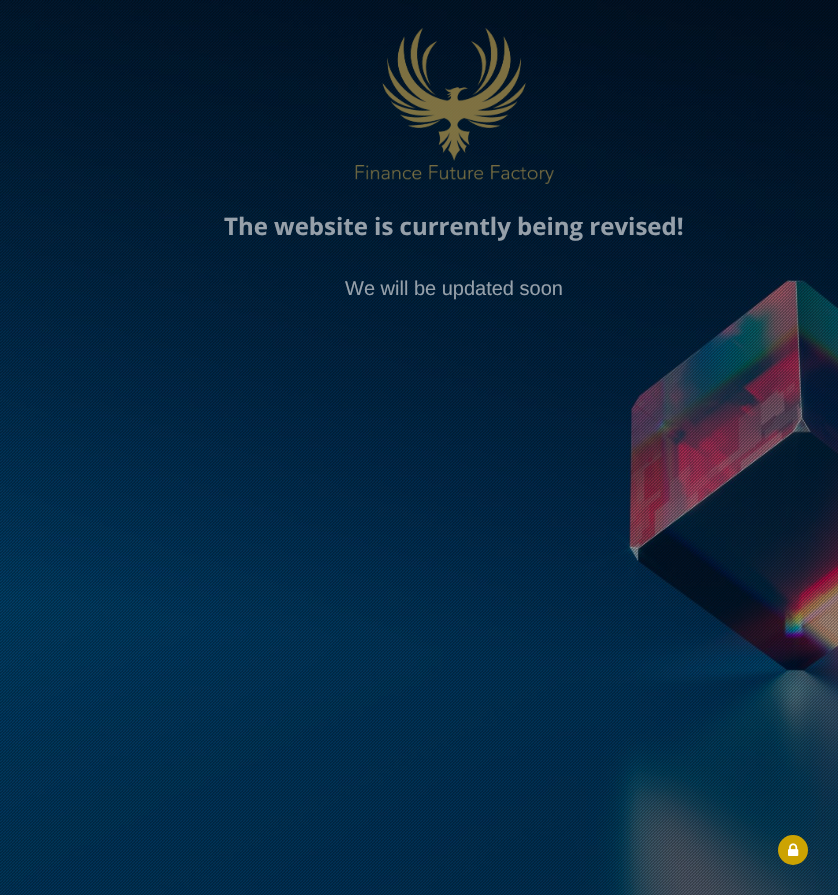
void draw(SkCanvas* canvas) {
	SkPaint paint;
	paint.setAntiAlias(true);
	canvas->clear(0xffffffff);
	canvas->drawImageRect(SkImages::DeferredFromEncodedData(SkData::MakeFromFileName("img1.png")), SkRect::MakeXYWH(0, 0, 838, 895), SkSamplingOptions());
	canvas->drawImageRect(SkImages::DeferredFromEncodedData(SkData::MakeFromFileName("img2.png")), SkRect::MakeXYWH(0, 0, 838, 895), SkSamplingOptions());
	canvas->drawImageRect(SkImages::DeferredFromEncodedData(SkData::MakeFromFileName("img3.png")), SkRect::MakeXYWH(355, 28, 199, 156), SkSamplingOptions());
	SkFont f1(fontMgr->matchFamilyStyle("Open Sans", SkFontStyle::Bold()), 24);
	f1.setSubpixel(true);
	paint.setColor(0xff96a0aa);
	canvas->drawString("The website is currently being revised!", 224, 235, f1, paint);
	SkFont f2(fontMgr->matchFamilyStyle("Liberation Sans", SkFontStyle::Normal()), 20);
	f2.setSubpixel(true);
	canvas->drawString("We will be updated soon", 345, 295, f2, paint);
	paint.setColor(0xffcca302);
	canvas->drawCircle(793, 850, 15, paint);
	canvas->drawImageRect(SkImages::DeferredFromEncodedData(SkData::MakeFromFileName("img4.png")), SkRect::MakeXYWH(788, 843, 11, 13), SkSamplingOptions());
}
